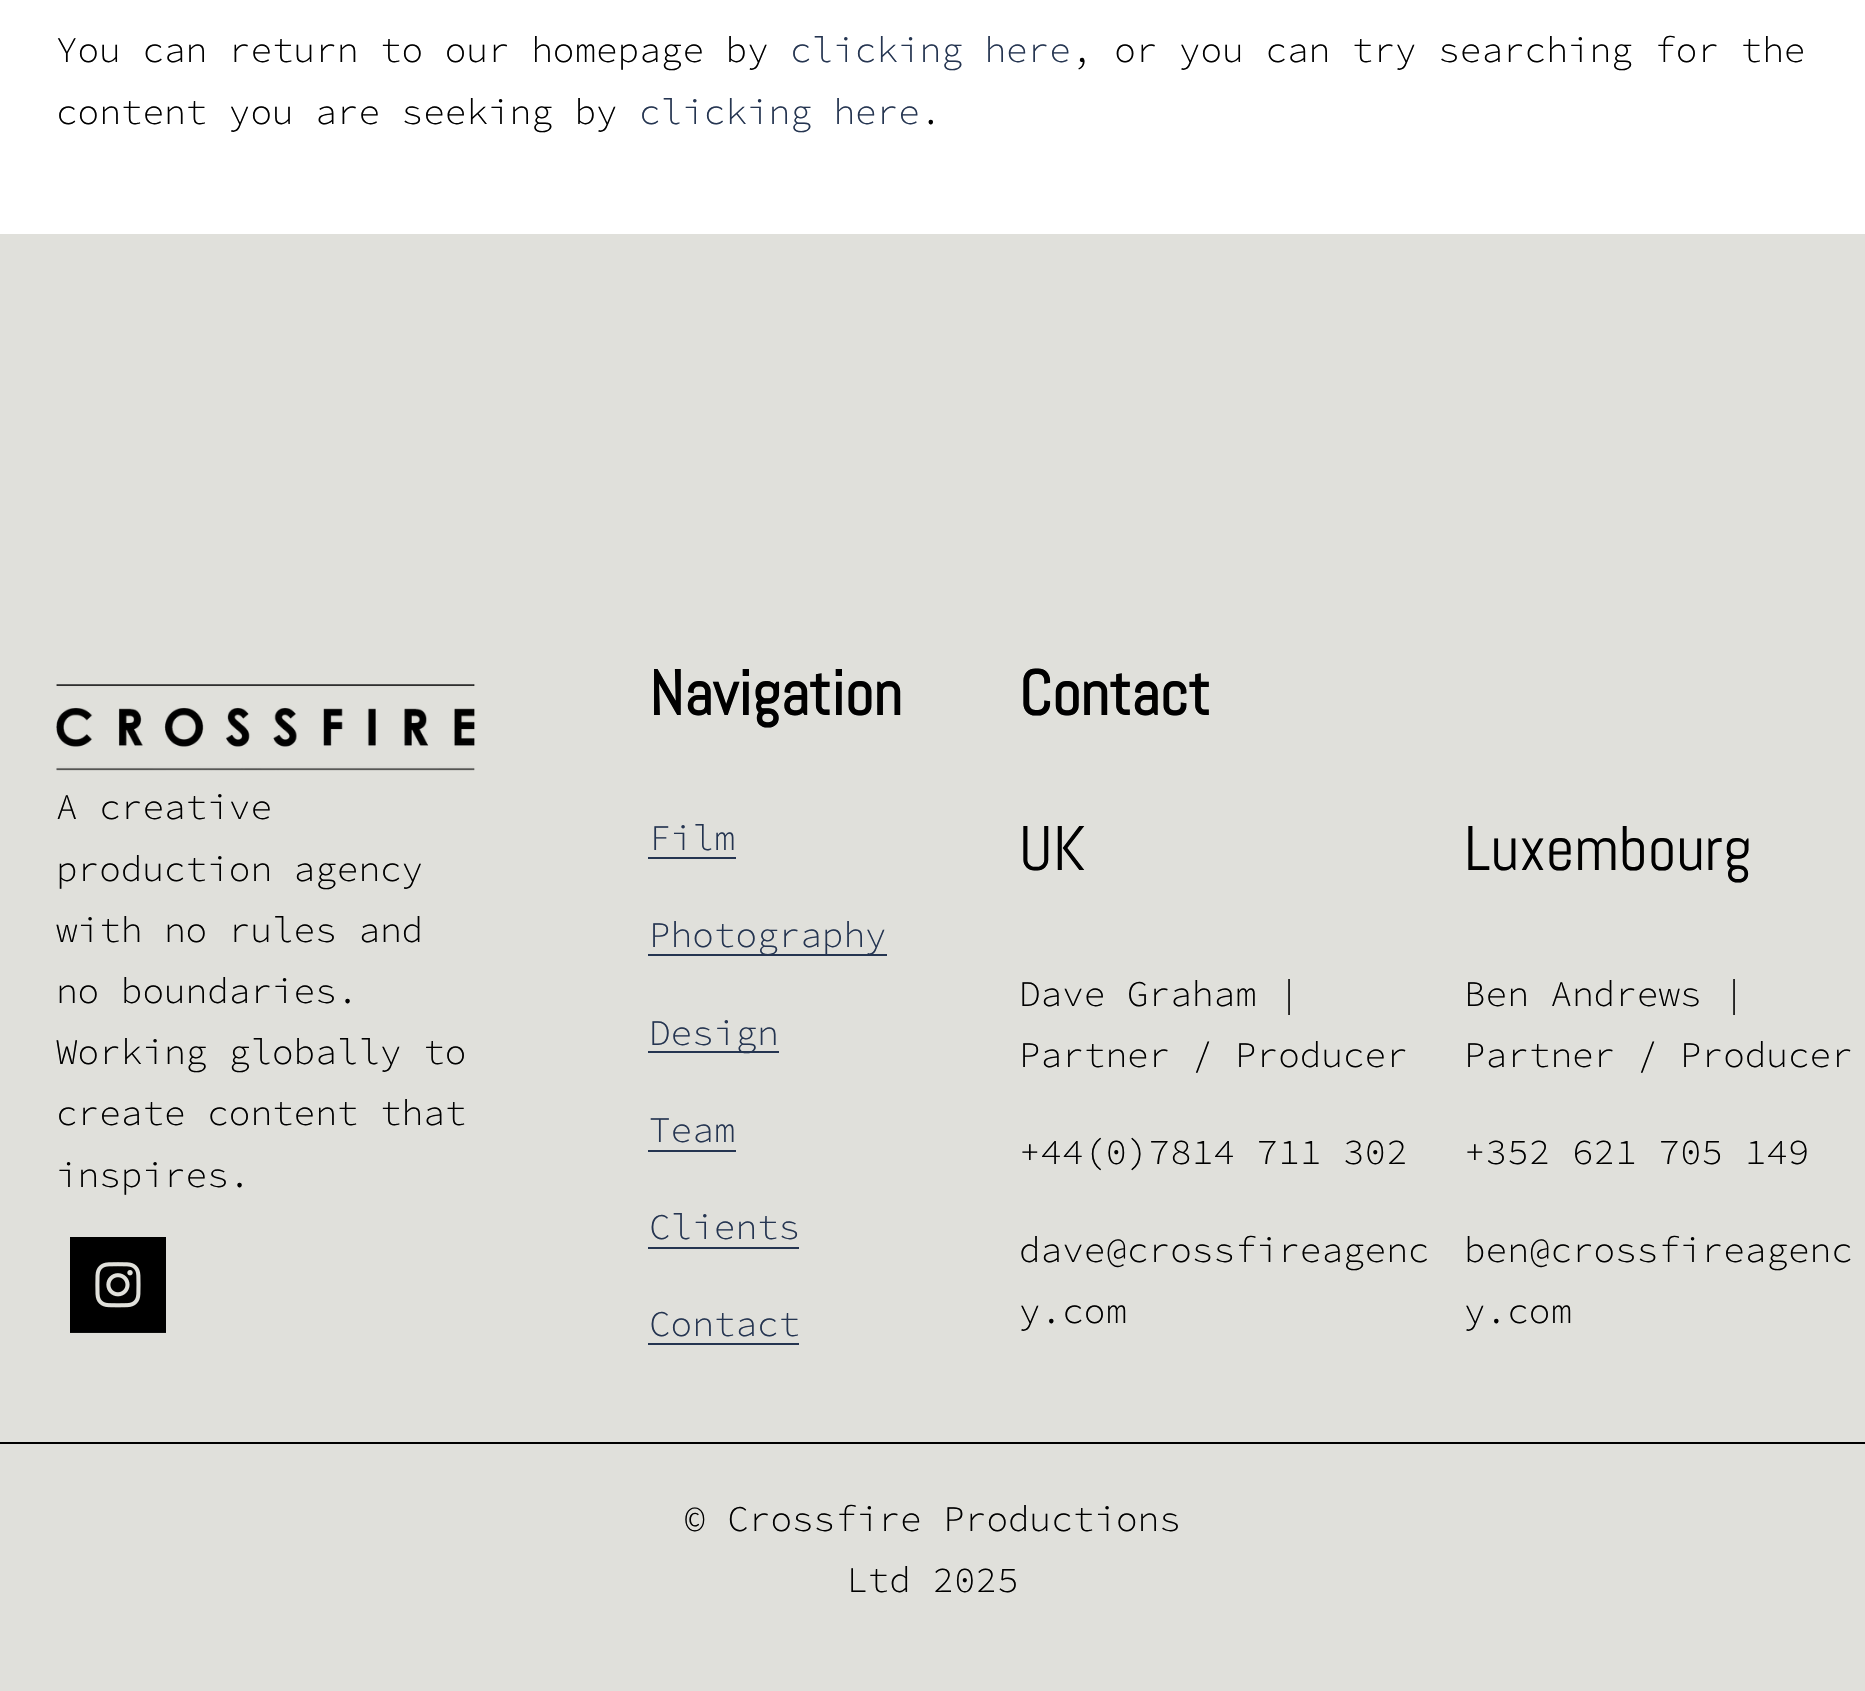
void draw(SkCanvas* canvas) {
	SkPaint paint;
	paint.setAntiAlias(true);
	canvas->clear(0xffffffff);
	SkFont f1(fontMgr->matchFamilyStyle("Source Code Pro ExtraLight", SkFontStyle(300, SkFontStyle::kNormal_Width, SkFontStyle::kUpright_Slant)), 36);
	f1.setSubpixel(true);
	paint.setColor(0xff000000);
	canvas->drawString("You can return to our homepage by", 56, 62, f1, paint);
	paint.setColor(0xff253551);
	canvas->drawString("clicking here", 790, 62, f1, paint);
	paint.setColor(0xff000000);
	canvas->drawString(", or you can try searching for the", 1071, 62, f1, paint);
	canvas->drawString("content you are seeking by", 56, 124, f1, paint);
	paint.setColor(0xff253551);
	canvas->drawString("clicking here", 639, 124, f1, paint);
	paint.setColor(0xff000000);
	canvas->drawString(".", 920, 124, f1, paint);
	paint.setColor(0xffe0e0db);
	canvas->drawRect(SkRect::MakeXYWH(0, 234, 1865, 1457), paint);
	canvas->drawImageRect(SkImages::DeferredFromEncodedData(SkData::MakeFromFileName("img1.png")), SkRect::MakeXYWH(56, 684, 419, 87), SkSamplingOptions());
	SkFont f2(fontMgr->matchFamilyStyle("Abel", SkFontStyle::Bold()), 63);
	f2.setSubpixel(true);
	paint.setColor(0xff000000);
	canvas->drawString("Navigation", 649, 715, f2, paint);
	paint.setColor(0xff253551);
	canvas->drawString("Film", 649, 850, f1, paint);
	canvas->drawRect(SkRect::MakeXYWH(648, 857, 88, 2), paint);
	canvas->drawRect(SkRect::MakeXYWH(648, 954, 239, 2), paint);
	canvas->drawString("Photography", 649, 947, f1, paint);
	canvas->drawRect(SkRect::MakeXYWH(648, 1051, 131, 2), paint);
	canvas->drawString("Design", 649, 1045, f1, paint);
	canvas->drawString("Team", 649, 1142, f1, paint);
	canvas->drawRect(SkRect::MakeXYWH(648, 1150, 88, 2), paint);
	canvas->drawString("Clients", 649, 1239, f1, paint);
	canvas->drawRect(SkRect::MakeXYWH(648, 1247, 151, 2), paint);
	canvas->drawString("Contact", 649, 1336, f1, paint);
	canvas->drawRect(SkRect::MakeXYWH(648, 1343, 151, 2), paint);
	paint.setColor(0xff000000);
	canvas->drawString("Contact", 1019, 715, f2, paint);
	SkFont f3(fontMgr->matchFamilyStyle("Abel", SkFontStyle::Normal()), 63);
	f3.setSubpixel(true);
	canvas->drawString("UK", 1019, 870, f3, paint);
	canvas->drawString("Dave Graham |", 1019, 1006, f1, paint);
	canvas->drawString("Partner / Producer", 1019, 1067, f1, paint);
	canvas->drawString("+44(0)7814 711 302", 1019, 1164, f1, paint);
	canvas->drawString("dave@crossfireagenc", 1019, 1262, f1, paint);
	canvas->drawString("y.com", 1019, 1323, f1, paint);
	canvas->drawString("A creative", 56, 819, f1, paint);
	canvas->drawString("production agency", 56, 881, f1, paint);
	canvas->drawString("with no rules and", 56, 942, f1, paint);
	canvas->drawString("no boundaries.", 56, 1003, f1, paint);
	canvas->drawString("Working globally to", 56, 1064, f1, paint);
	canvas->drawString("create content that", 56, 1125, f1, paint);
	canvas->drawString("inspires.", 56, 1187, f1, paint);
	canvas->drawString("Luxembourg", 1464, 870, f3, paint);
	canvas->drawString("Ben Andrews |", 1464, 1006, f1, paint);
	canvas->drawString("Partner / Producer", 1464, 1067, f1, paint);
	canvas->drawString("+352 621 705 149", 1464, 1164, f1, paint);
	canvas->drawString("ben@crossfireagenc", 1464, 1262, f1, paint);
	canvas->drawString("y.com", 1464, 1323, f1, paint);
	canvas->drawImageRect(SkImages::DeferredFromEncodedData(SkData::MakeFromFileName("img2.png")), SkRect::MakeXYWH(70, 1237, 96, 96), SkSamplingOptions());
	canvas->drawRect(SkRect::MakeXYWH(0, 1442, 1865, 2), paint);
	canvas->drawString("© Crossfire Productions", 684, 1531, f1, paint);
	canvas->drawString("Ltd 2025", 846, 1592, f1, paint);
}
